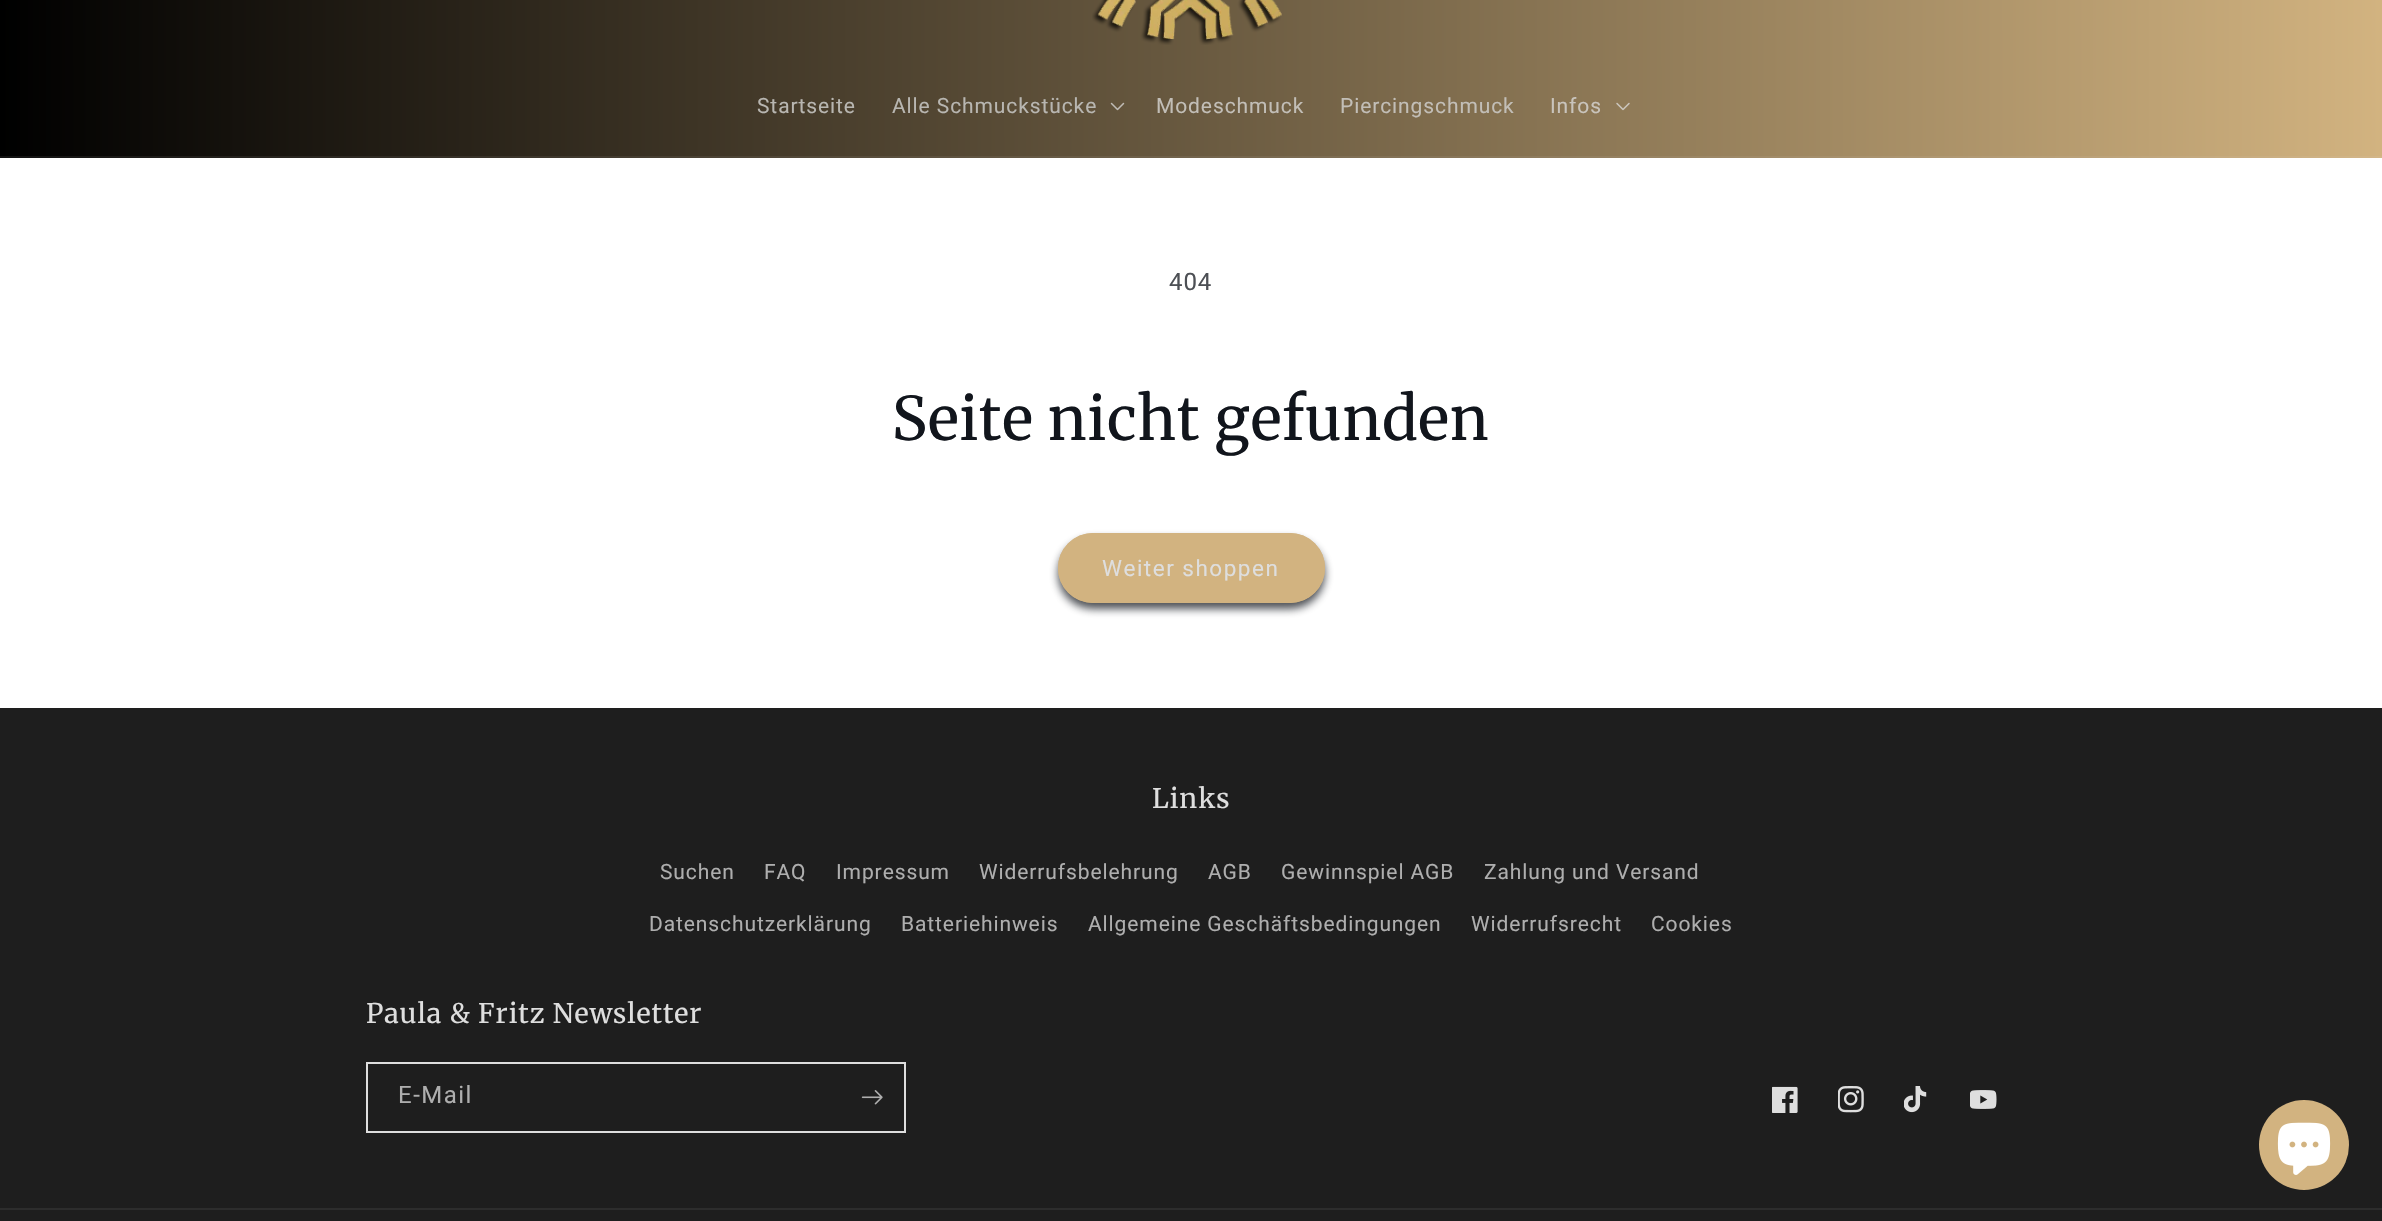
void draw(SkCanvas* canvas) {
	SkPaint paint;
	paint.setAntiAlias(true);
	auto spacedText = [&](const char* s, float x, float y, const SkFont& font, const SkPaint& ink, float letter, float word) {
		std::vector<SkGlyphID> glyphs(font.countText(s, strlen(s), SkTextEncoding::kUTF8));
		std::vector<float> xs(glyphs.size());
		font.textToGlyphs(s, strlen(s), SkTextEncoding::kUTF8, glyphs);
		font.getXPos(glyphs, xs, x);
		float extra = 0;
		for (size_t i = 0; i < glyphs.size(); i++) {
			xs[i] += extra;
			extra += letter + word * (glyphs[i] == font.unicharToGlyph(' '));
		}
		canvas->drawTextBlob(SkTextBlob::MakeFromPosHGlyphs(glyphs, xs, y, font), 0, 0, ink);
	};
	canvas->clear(0xffffffff);
	{
		const SkColor colors[] = {0xffd2b380, 0xff000000};
		const float stops[] = {0, 1};
		const SkPoint ends[] = {{2382, 610}, {0, 611}};
		paint.setShader(SkGradientShader::MakeLinear(ends, colors, stops, 2, SkTileMode::kClamp));
		paint.setAlpha(255);
	}
	canvas->drawRect(SkRect::MakeXYWH(0, 0, 2382, 156), paint);
	{
		const SkColor colors[] = {0xffd3b688, 0xff121212};
		const float stops[] = {0, 1};
		const SkPoint ends[] = {{2382, 610}, {0, 611}};
		paint.setShader(SkGradientShader::MakeLinear(ends, colors, stops, 2, SkTileMode::kClamp));
		paint.setAlpha(255);
	}
	canvas->drawRect(SkRect::MakeXYWH(0, 156, 2382, 2), paint);
	canvas->drawImageRect(SkImages::DeferredFromEncodedData(SkData::MakeFromFileName("img1.png")), SkRect::MakeXYWH(1092, 0, 190, 45), SkSamplingOptions());
	SkFont f1(fontMgr->matchFamilyStyle("Roboto", SkFontStyle::Normal()), 21);
	f1.setSubpixel(true);
	paint.setShader(nullptr);
	paint.setColor(0xffb8b6b1);
	spacedText("Startseite", 757, 113, f1, paint, 0.9, 0);
	spacedText("Alle Schmuckstücke", 892, 113, f1, paint, 0.9, 0);
	canvas->drawImageRect(SkImages::DeferredFromEncodedData(SkData::MakeFromFileName("img2.png")), SkRect::MakeXYWH(1110, 102, 15, 9), SkSamplingOptions());
	paint.setColor(0xffc2beb7);
	spacedText("Modeschmuck", 1156, 113, f1, paint, 0.9, 0);
	spacedText("Piercingschmuck", 1340, 113, f1, paint, 0.9, 0);
	paint.setColor(0xffc9c4bc);
	spacedText("Infos", 1550, 113, f1, paint, 0.9, 0);
	canvas->drawImageRect(SkImages::DeferredFromEncodedData(SkData::MakeFromFileName("img3.png")), SkRect::MakeXYWH(1616, 102, 14, 9), SkSamplingOptions());
	SkFont f2(fontMgr->matchFamilyStyle("Roboto", SkFontStyle::Normal()), 24);
	f2.setSubpixel(true);
	paint.setColor(0xff4d5055);
	spacedText("404", 1169, 290, f2, paint, 0.9, 0);
	SkFont f3(fontMgr->matchFamilyStyle("Merriweather", SkFontStyle::Normal()), 60);
	f3.setSubpixel(true);
	paint.setColor(0xff11151c);
	spacedText("Seite nicht gefunden", 892, 440, f3, paint, 0.9, 0);
	paint.setColor(0xbf11151c);
	paint.setMaskFilter(SkMaskFilter::MakeBlur(kNormal_SkBlurStyle, 4));
	canvas->drawRoundRect(SkRect::MakeXYWH(1058, 539, 267, 70), 35, 35, paint);
	paint.setMaskFilter(nullptr);
	paint.setColor(0xffd2b380);
	canvas->drawRoundRect(SkRect::MakeXYWH(1058, 533, 267, 70), 35, 35, paint);
	paint.setStroke(true);
	paint.setStrokeWidth(2);
	canvas->drawRoundRect(SkRect::MakeXYWH(1059, 534, 265, 68), 34, 34, paint);
	SkFont f4(fontMgr->matchFamilyStyle("Roboto", SkFontStyle::Normal()), 22.5);
	f4.setSubpixel(true);
	paint.setStroke(false);
	paint.setColor(0xffdedede);
	spacedText("Weiter shoppen", 1102, 576, f4, paint, 1.5, 0);
	paint.setColor(0xff1e1e1e);
	canvas->drawRect(SkRect::MakeXYWH(0, 708, 2382, 513), paint);
	SkFont f5(fontMgr->matchFamilyStyle("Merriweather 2", SkFontStyle::Normal()), 27);
	f5.setSubpixel(true);
	paint.setColor(0xffdedede);
	spacedText("Links", 1152, 808, f5, paint, 0.9, 0);
	paint.setColor(0xffaeaeae);
	spacedText("Suchen", 660, 879, f1, paint, 0.9, 0);
	spacedText("FAQ", 764, 879, f1, paint, 0.9, 0);
	spacedText("Impressum", 836, 879, f1, paint, 0.9, 0);
	spacedText("Widerrufsbelehrung", 979, 879, f1, paint, 0.9, 0);
	spacedText("AGB", 1208, 879, f1, paint, 0.9, 0);
	spacedText("Gewinnspiel AGB", 1281, 879, f1, paint, 0.9, 0);
	spacedText("Zahlung und Versand", 1484, 879, f1, paint, 0.9, 0);
	spacedText("Datenschutzerklärung", 649, 931, f1, paint, 0.9, 0);
	spacedText("Batteriehinweis", 901, 931, f1, paint, 0.9, 0);
	spacedText("Allgemeine Geschäftsbedingungen", 1088, 931, f1, paint, 0.9, 0);
	spacedText("Widerrufsrecht", 1471, 931, f1, paint, 0.9, 0);
	spacedText("Cookies", 1651, 931, f1, paint, 0.9, 0);
	paint.setColor(0xffdedede);
	spacedText("Paula & Fritz Newsletter", 366, 1023, f5, paint, 0.9, 0);
	paint.setStroke(true);
	canvas->drawRect(SkRect::MakeXYWH(367, 1063, 538, 69), paint);
	paint.setStroke(false);
	paint.setColor(0xffaeaeae);
	spacedText("E-Mail", 398, 1103, f2, paint, 1.5, 0);
	canvas->drawImageRect(SkImages::DeferredFromEncodedData(SkData::MakeFromFileName("img4.png")), SkRect::MakeXYWH(861, 1090, 22, 15), SkSamplingOptions());
	canvas->drawImageRect(SkImages::DeferredFromEncodedData(SkData::MakeFromFileName("img5.png")), SkRect::MakeXYWH(1772, 1086, 26, 27), SkSamplingOptions());
	canvas->drawImageRect(SkImages::DeferredFromEncodedData(SkData::MakeFromFileName("img6.png")), SkRect::MakeXYWH(1838, 1086, 26, 27), SkSamplingOptions());
	canvas->drawImageRect(SkImages::DeferredFromEncodedData(SkData::MakeFromFileName("img7.png")), SkRect::MakeXYWH(1904, 1086, 23, 27), SkSamplingOptions());
	canvas->drawImageRect(SkImages::DeferredFromEncodedData(SkData::MakeFromFileName("img8.png")), SkRect::MakeXYWH(1970, 1090, 27, 19), SkSamplingOptions());
	paint.setColor(0xff2d2d2d);
	canvas->drawRect(SkRect::MakeXYWH(0, 1208, 2382, 2), paint);
	paint.setColor(0xffd2b380);
	canvas->drawCircle(2304, 1145, 45, paint);
	canvas->drawImageRect(SkImages::DeferredFromEncodedData(SkData::MakeFromFileName("img9.png")), SkRect::MakeXYWH(2277, 1122, 54, 53), SkSamplingOptions());
}
